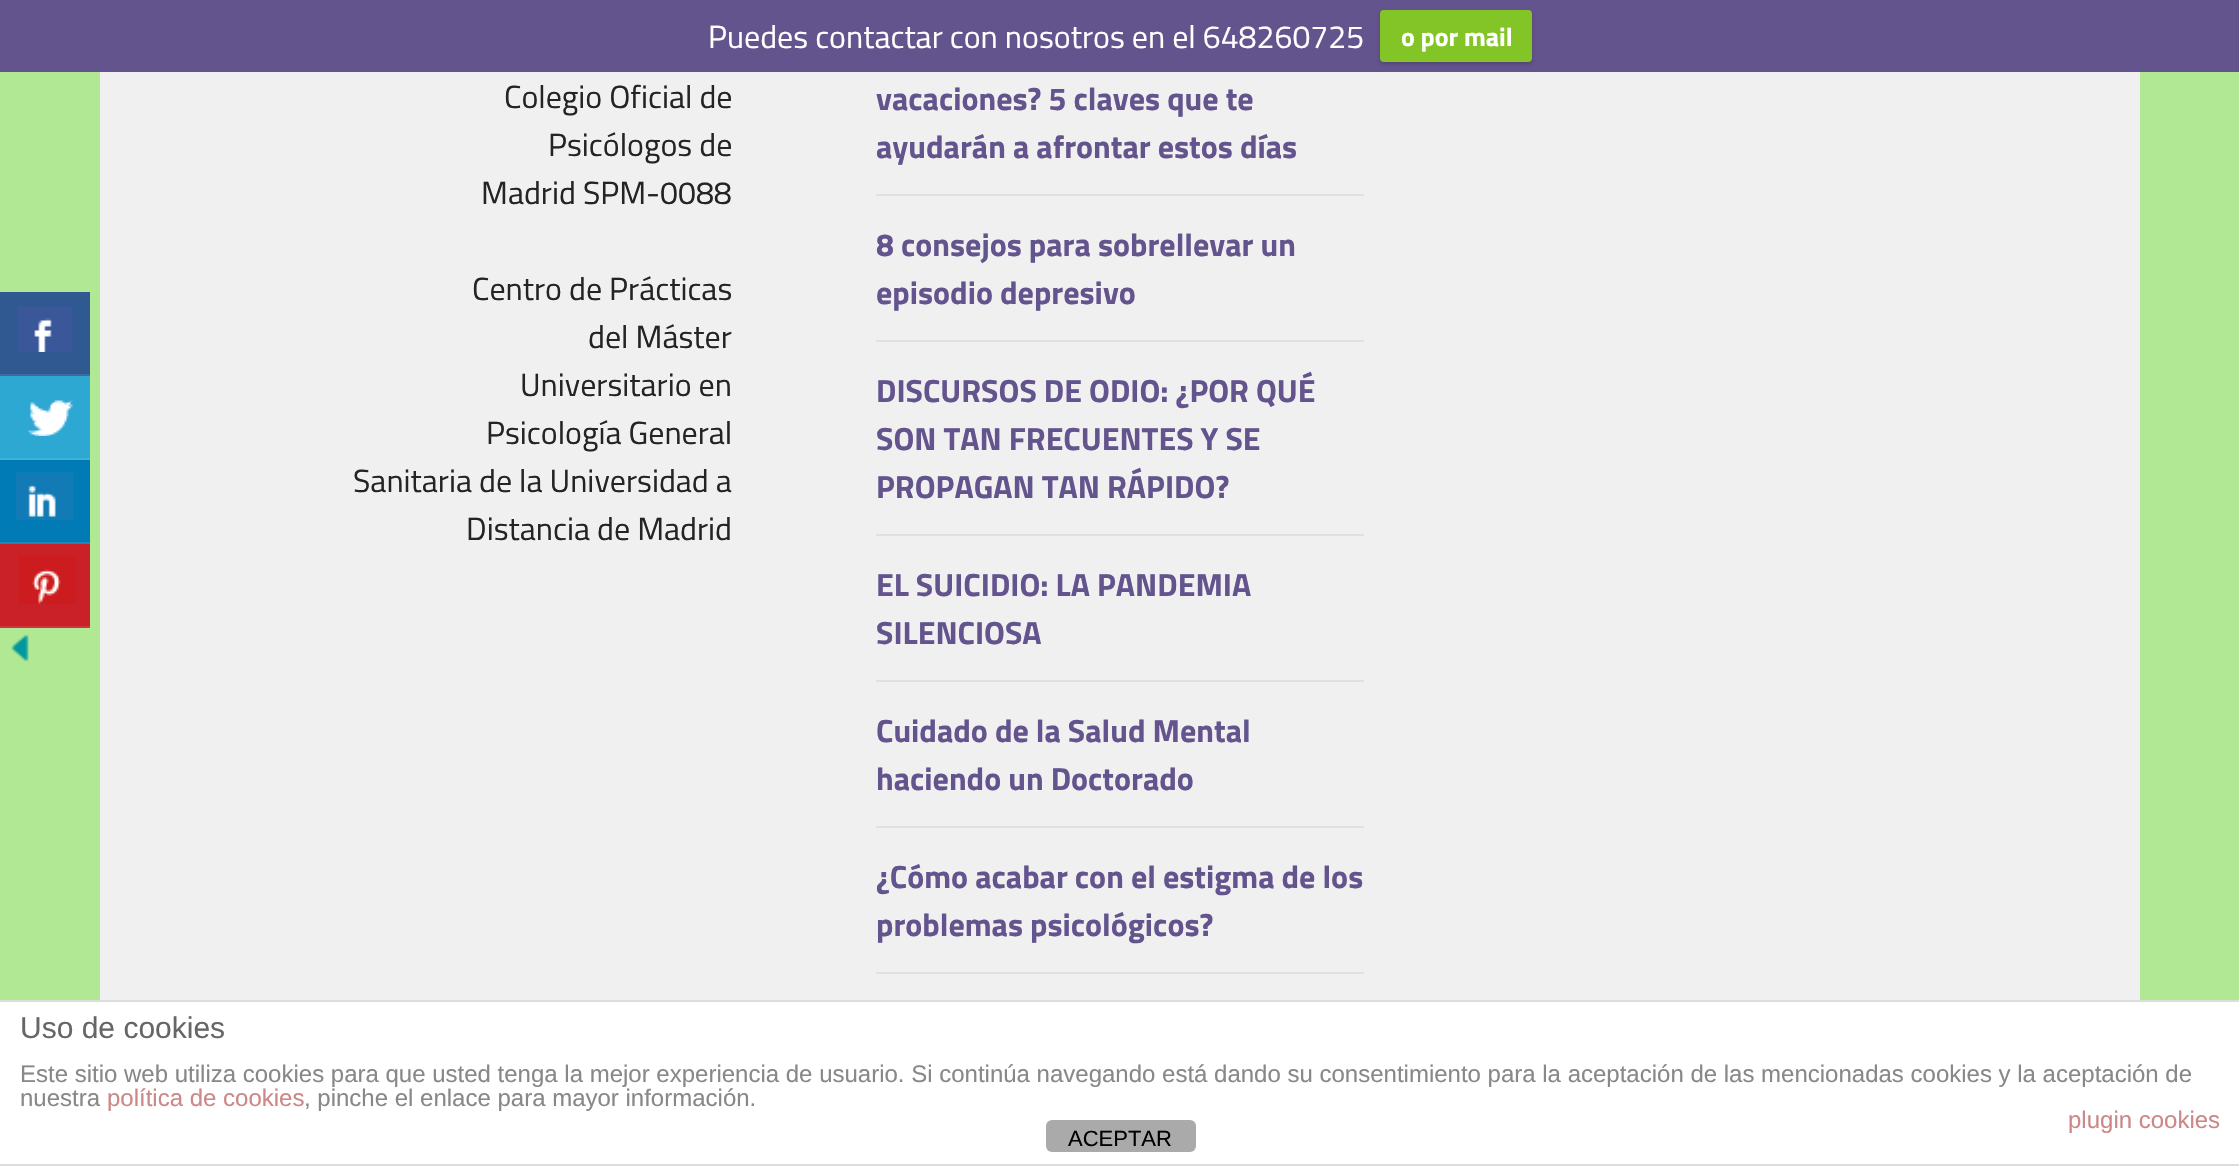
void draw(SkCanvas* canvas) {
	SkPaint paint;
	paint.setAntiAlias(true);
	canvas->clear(0xffb1e894);
	paint.setColor(0xff64548e);
	canvas->drawRect(SkRect::MakeXYWH(0, 0, 2239, 72), paint);
	SkFont f1(fontMgr->matchFamilyStyle("Titillium Web", SkFontStyle::Normal()), 32);
	f1.setSubpixel(true);
	paint.setColor(0xffffffff);
	canvas->drawString("Puedes contactar con nosotros en el 648260725", 708, 48, f1, paint);
	paint.setColor(0x33000000);
	paint.setMaskFilter(SkMaskFilter::MakeBlur(kNormal_SkBlurStyle, 2));
	canvas->drawRoundRect(SkRect::MakeXYWH(1380, 12, 152, 52), 4, 4, paint);
	paint.setMaskFilter(nullptr);
	paint.setColor(0xff83c526);
	canvas->drawRoundRect(SkRect::MakeXYWH(1380, 10, 152, 52), 4, 4, paint);
	SkFont f2(fontMgr->matchFamilyStyle("Titillium Web", SkFontStyle::Bold()), 26);
	f2.setSubpixel(true);
	paint.setColor(0xffffffff);
	canvas->drawString("o por mail", 1401, 46, f2, paint);
	paint.setColor(0xff305891);
	canvas->drawRect(SkRect::MakeXYWH(0, 292, 90, 82), paint);
	paint.setColor(0xff45699c);
	canvas->drawRect(SkRect::MakeXYWH(0, 374, 90, 2), paint);
	canvas->drawImageRect(SkImages::DeferredFromEncodedData(SkData::MakeFromFileName("img1.png")), SkRect::MakeXYWH(17, 306, 56, 46), SkSamplingOptions());
	paint.setColor(0xff2ca8d2);
	canvas->drawRect(SkRect::MakeXYWH(0, 376, 90, 82), paint);
	paint.setColor(0xff41b1d7);
	canvas->drawRect(SkRect::MakeXYWH(0, 458, 90, 2), paint);
	canvas->drawImageRect(SkImages::DeferredFromEncodedData(SkData::MakeFromFileName("img2.png")), SkRect::MakeXYWH(28, 400, 45, 36), SkSamplingOptions());
	paint.setColor(0xff007bb6);
	canvas->drawRect(SkRect::MakeXYWH(0, 460, 90, 82), paint);
	paint.setColor(0xff1a88bd);
	canvas->drawRect(SkRect::MakeXYWH(0, 542, 90, 2), paint);
	canvas->drawImageRect(SkImages::DeferredFromEncodedData(SkData::MakeFromFileName("img3.png")), SkRect::MakeXYWH(16, 472, 58, 48), SkSamplingOptions());
	paint.setColor(0xffca2027);
	canvas->drawRect(SkRect::MakeXYWH(0, 544, 90, 82), paint);
	paint.setColor(0xffcf363d);
	canvas->drawRect(SkRect::MakeXYWH(0, 626, 90, 2), paint);
	canvas->drawImageRect(SkImages::DeferredFromEncodedData(SkData::MakeFromFileName("img4.png")), SkRect::MakeXYWH(18, 555, 58, 49), SkSamplingOptions());
	canvas->drawImageRect(SkImages::DeferredFromEncodedData(SkData::MakeFromFileName("img5.png")), SkRect::MakeXYWH(11, 634, 18, 28), SkSamplingOptions());
	paint.setColor(0xfff1f0f0);
	canvas->drawRect(SkRect::MakeXYWH(100, 72, 2040, 928), paint);
	paint.setColor(0xff242424);
	canvas->drawString("Colegio Oficial de", 504, 108, f1, paint);
	canvas->drawString("Psicólogos de", 548, 156, f1, paint);
	canvas->drawString("Madrid SPM-0088", 481, 204, f1, paint);
	canvas->drawString("Centro de Prácticas", 472, 300, f1, paint);
	canvas->drawString("del Máster", 588, 348, f1, paint);
	canvas->drawString("Universitario en", 520, 396, f1, paint);
	canvas->drawString("Psicología General", 486, 444, f1, paint);
	canvas->drawString("Sanitaria de la Universidad a", 353, 492, f1, paint);
	canvas->drawString("Distancia de Madrid", 466, 540, f1, paint);
	SkFont f3(fontMgr->matchFamilyStyle("Titillium Web", SkFontStyle::Bold()), 32);
	f3.setSubpixel(true);
	paint.setColor(0xff63548e);
	canvas->drawString("vacaciones? 5 claves que te", 876, 110, f3, paint);
	canvas->drawString("ayudarán a afrontar estos días", 876, 158, f3, paint);
	paint.setColor(0xffe1dfdf);
	canvas->drawRect(SkRect::MakeXYWH(876, 194, 488, 2), paint);
	paint.setColor(0xff63548e);
	canvas->drawString("8 consejos para sobrellevar un", 876, 256, f3, paint);
	canvas->drawString("episodio depresivo", 876, 304, f3, paint);
	paint.setColor(0xffe1dfdf);
	canvas->drawRect(SkRect::MakeXYWH(876, 340, 488, 2), paint);
	paint.setColor(0xff63548e);
	canvas->drawString("DISCURSOS DE ODIO: ¿POR QUÉ", 876, 402, f3, paint);
	canvas->drawString("SON TAN FRECUENTES Y SE", 876, 450, f3, paint);
	canvas->drawString("PROPAGAN TAN RÁPIDO?", 876, 498, f3, paint);
	paint.setColor(0xffe1dfdf);
	canvas->drawRect(SkRect::MakeXYWH(876, 534, 488, 2), paint);
	paint.setColor(0xff63548e);
	canvas->drawString("EL SUICIDIO: LA PANDEMIA", 876, 596, f3, paint);
	canvas->drawString("SILENCIOSA", 876, 644, f3, paint);
	paint.setColor(0xffe1dfdf);
	canvas->drawRect(SkRect::MakeXYWH(876, 680, 488, 2), paint);
	paint.setColor(0xff63548e);
	canvas->drawString("Cuidado de la Salud Mental", 876, 742, f3, paint);
	canvas->drawString("haciendo un Doctorado", 876, 790, f3, paint);
	paint.setColor(0xffe1dfdf);
	canvas->drawRect(SkRect::MakeXYWH(876, 826, 488, 2), paint);
	paint.setColor(0xff63548e);
	canvas->drawString("¿Cómo acabar con el estigma de los", 876, 888, f3, paint);
	canvas->drawString("problemas psicológicos?", 876, 936, f3, paint);
	paint.setColor(0xffe1dfdf);
	canvas->drawRect(SkRect::MakeXYWH(876, 972, 488, 2), paint);
	paint.setColor(0xffffffff);
	canvas->drawRect(SkRect::MakeXYWH(0, 1002, 2239, 162), paint);
	paint.setColor(0xffdddddd);
	canvas->drawRect(SkRect::MakeXYWH(0, 1000, 2239, 2), paint);
	canvas->drawRect(SkRect::MakeXYWH(0, 1164, 2239, 2), paint);
	SkFont f4(fontMgr->matchFamilyStyle("Liberation Sans", SkFontStyle::Normal()), 30);
	f4.setSubpixel(true);
	paint.setColor(0xff666666);
	canvas->drawString("Uso de cookies", 20, 1038, f4, paint);
	SkFont f5(fontMgr->matchFamilyStyle("Liberation Sans", SkFontStyle::Normal()), 24);
	f5.setSubpixel(true);
	paint.setColor(0xff888888);
	canvas->drawString("Este sitio web utiliza cookies para que usted tenga la mejor experiencia de usuario. Si continúa navegando está dando su consentimiento para la aceptación de las mencionadas cookies y la aceptación de", 20, 1082, f5, paint);
	canvas->drawString("nuestra", 20, 1106, f5, paint);
	paint.setColor(0xffcc8888);
	canvas->drawString("política de cookies", 107, 1106, f5, paint);
	paint.setColor(0xff888888);
	canvas->drawString(", pinche el enlace para mayor información.", 304, 1106, f5, paint);
	paint.setColor(0xffcc8888);
	canvas->drawString("plugin cookies", 2068, 1128, f5, paint);
	paint.setColor(0xffaaaaaa);
	canvas->drawRoundRect(SkRect::MakeXYWH(1046, 1120, 150, 32), 6, 6, paint);
	SkFont f6(fontMgr->matchFamilyStyle("Liberation Sans", SkFontStyle::Normal()), 22);
	f6.setSubpixel(true);
	paint.setColor(0xff000000);
	canvas->drawString("ACEPTAR", 1068, 1146, f6, paint);
}
